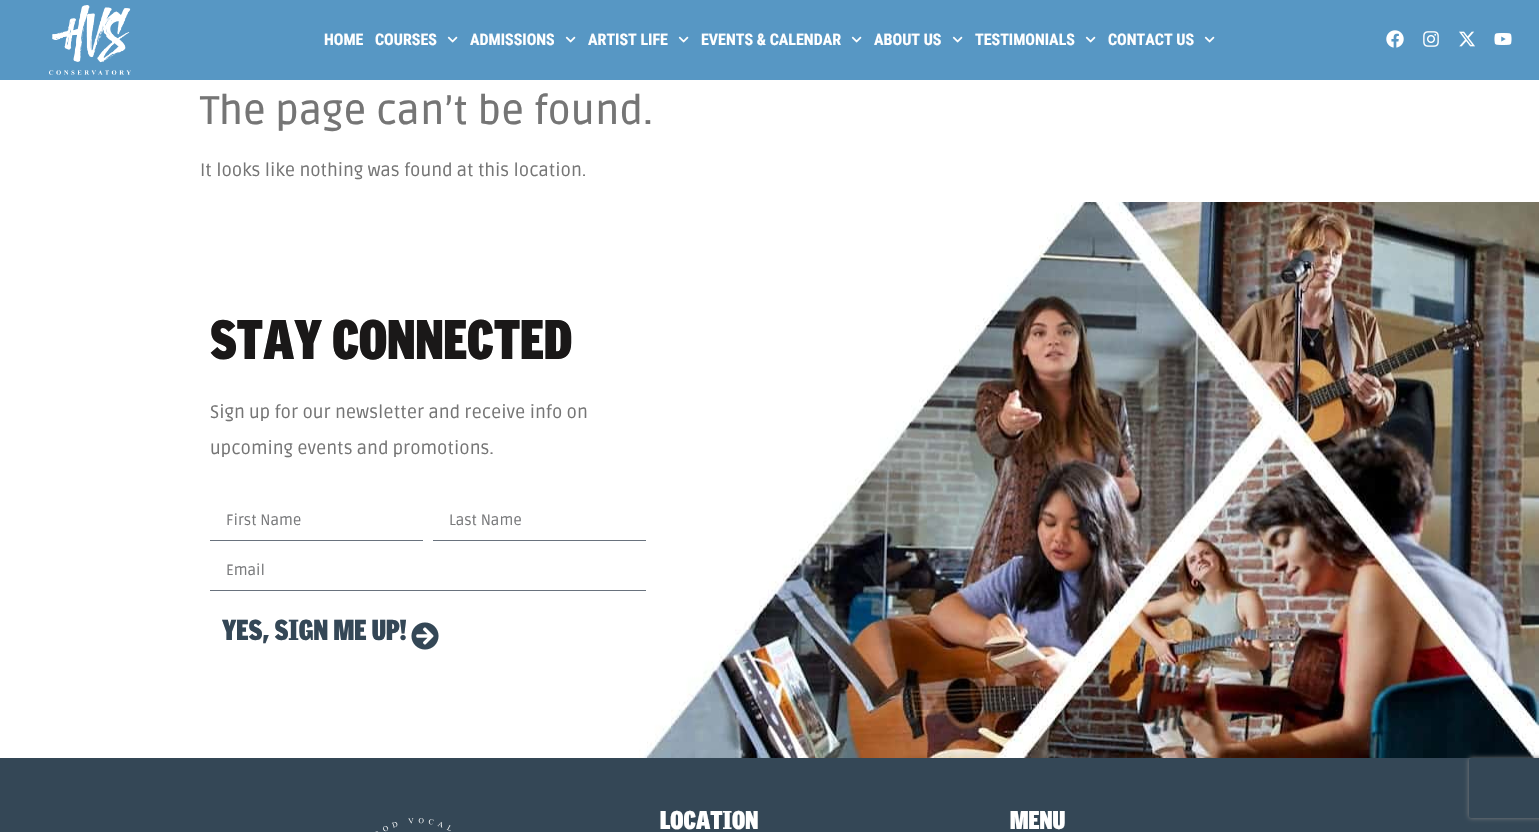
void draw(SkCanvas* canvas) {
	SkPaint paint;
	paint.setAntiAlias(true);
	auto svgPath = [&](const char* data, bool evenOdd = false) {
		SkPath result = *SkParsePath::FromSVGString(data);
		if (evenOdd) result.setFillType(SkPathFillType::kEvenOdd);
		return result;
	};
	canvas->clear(0xffffffff);
	paint.setColor(0xff5797c4);
	canvas->drawRect(SkRect::MakeXYWH(0, 0, 1539, 80), paint);
	canvas->drawImageRect(SkImages::DeferredFromEncodedData(SkData::MakeFromFileName("img1.png")), SkRect::MakeXYWH(49, 5, 82, 70), SkSamplingOptions());
	SkFont f1(fontMgr->matchFamilyStyle("Roboto Condensed", SkFontStyle::Bold()), 16);
	f1.setSubpixel(true);
	paint.setColor(0xffffffff);
	canvas->drawString("HOME", 324, 45, f1, paint);
	canvas->drawString("COURSES", 375, 45, f1, paint);
	canvas->drawImageRect(SkImages::DeferredFromEncodedData(SkData::MakeFromFileName("img2.png")), SkRect::MakeXYWH(447, 36, 11, 7), SkSamplingOptions());
	canvas->drawString("ADMISSIONS", 470, 45, f1, paint);
	canvas->drawImageRect(SkImages::DeferredFromEncodedData(SkData::MakeFromFileName("img2.png")), SkRect::MakeXYWH(565, 36, 11, 7), SkSamplingOptions());
	canvas->drawString("ARTIST LIFE", 588, 45, f1, paint);
	canvas->drawImageRect(SkImages::DeferredFromEncodedData(SkData::MakeFromFileName("img2.png")), SkRect::MakeXYWH(678, 36, 11, 7), SkSamplingOptions());
	canvas->drawString("EVENTS & CALENDAR", 701, 45, f1, paint);
	canvas->drawImageRect(SkImages::DeferredFromEncodedData(SkData::MakeFromFileName("img2.png")), SkRect::MakeXYWH(851, 36, 11, 7), SkSamplingOptions());
	canvas->drawString("ABOUT US", 874, 45, f1, paint);
	canvas->drawImageRect(SkImages::DeferredFromEncodedData(SkData::MakeFromFileName("img2.png")), SkRect::MakeXYWH(952, 36, 11, 7), SkSamplingOptions());
	canvas->drawString("TESTIMONIALS", 975, 45, f1, paint);
	canvas->drawImageRect(SkImages::DeferredFromEncodedData(SkData::MakeFromFileName("img2.png")), SkRect::MakeXYWH(1085, 36, 11, 7), SkSamplingOptions());
	canvas->drawString("CONTACT US", 1108, 45, f1, paint);
	canvas->drawImageRect(SkImages::DeferredFromEncodedData(SkData::MakeFromFileName("img2.png")), SkRect::MakeXYWH(1204, 36, 11, 7), SkSamplingOptions());
	canvas->drawImageRect(SkImages::DeferredFromEncodedData(SkData::MakeFromFileName("img3.png")), SkRect::MakeXYWH(1386, 30, 18, 18), SkSamplingOptions());
	canvas->drawImageRect(SkImages::DeferredFromEncodedData(SkData::MakeFromFileName("img4.png")), SkRect::MakeXYWH(1423, 31, 16, 16), SkSamplingOptions());
	canvas->drawImageRect(SkImages::DeferredFromEncodedData(SkData::MakeFromFileName("img5.png")), SkRect::MakeXYWH(1459, 31, 16, 16), SkSamplingOptions());
	canvas->drawImageRect(SkImages::DeferredFromEncodedData(SkData::MakeFromFileName("img6.png")), SkRect::MakeXYWH(1494, 33, 18, 12), SkSamplingOptions());
	SkFont f2(fontMgr->matchFamilyStyle("Ruda", SkFontStyle(500, SkFontStyle::kNormal_Width, SkFontStyle::kUpright_Slant)), 40);
	f2.setSubpixel(true);
	paint.setColor(0xff757575);
	canvas->drawString("The page can’t be found.", 200, 124, f2, paint);
	SkFont f3(fontMgr->matchFamilyStyle("Ruda", SkFontStyle::Normal()), 18);
	f3.setSubpixel(true);
	canvas->drawString("It looks like nothing was found at this location.", 200, 176, f3, paint);
	canvas->drawImageRect(SkImages::DeferredFromEncodedData(SkData::MakeFromFileName("img7.png")), SkRect::MakeXYWH(639, 202, 900, 556), SkSamplingOptions());
	SkFont f4(fontMgr->matchFamilyStyle("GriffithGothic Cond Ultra", SkFontStyle::Normal()), 54);
	f4.setSubpixel(true);
	paint.setColor(0xff1a1818);
	canvas->drawString("STAY CONNECTED", 210, 359, f4, paint);
	paint.setColor(0xff757575);
	canvas->drawString("Sign up for our newsletter and receive info on", 210, 418, f3, paint);
	canvas->drawString("upcoming events and promotions.", 210, 454, f3, paint);
	paint.setColor(0xff69727d);
	canvas->drawRect(SkRect::MakeXYWH(210, 540, 213, 1), paint);
	SkFont f5(fontMgr->matchFamilyStyle("Ruda", SkFontStyle::Normal()), 15);
	f5.setSubpixel(true);
	paint.setColor(0xff797a7c);
	canvas->drawString("First Name", 226, 525, f5, paint);
	paint.setColor(0xff69727d);
	canvas->drawRect(SkRect::MakeXYWH(433, 540, 213, 1), paint);
	paint.setColor(0xff797a7c);
	canvas->drawString("Last Name", 449, 525, f5, paint);
	paint.setColor(0xff69727d);
	canvas->drawRect(SkRect::MakeXYWH(210, 590, 436, 1), paint);
	paint.setColor(0xff797a7c);
	canvas->drawString("Email", 226, 575, f5, paint);
	SkFont f6(fontMgr->matchFamilyStyle("GriffithGothic Cond Ultra", SkFontStyle::Normal()), 28);
	f6.setSubpixel(true);
	paint.setColor(0xff344756);
	canvas->drawString("YES, SIGN ME UP!", 222, 640, f6, paint);
	canvas->drawImageRect(SkImages::DeferredFromEncodedData(SkData::MakeFromFileName("img8.png")), SkRect::MakeXYWH(411, 622, 28, 28), SkSamplingOptions());
	canvas->drawRect(SkRect::MakeXYWH(0, 758, 1539, 74), paint);
	canvas->save();
	canvas->clipPath(svgPath("M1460 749H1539V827H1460ZM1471 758H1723C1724 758 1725 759 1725 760V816C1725 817 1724 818 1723 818H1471C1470 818 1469 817 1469 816V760C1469 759 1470 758 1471 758Z", true), true);
	paint.setColor(0xff808080);
	paint.setMaskFilter(SkMaskFilter::MakeBlur(kNormal_SkBlurStyle, 2.5));
	canvas->drawRoundRect(SkRect::MakeXYWH(1469, 758, 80, 60), 2, 2, paint);
	paint.setMaskFilter(nullptr);
	canvas->restore();
	canvas->drawImageRect(SkImages::DeferredFromEncodedData(SkData::MakeFromFileName("img9.png")), SkRect::MakeXYWH(375, 818, 76, 14), SkSamplingOptions());
	SkFont f7(fontMgr->matchFamilyStyle("GriffithGothic Cond Ultra", SkFontStyle::Normal()), 25);
	f7.setSubpixel(true);
	paint.setColor(0xffffffff);
	canvas->drawString("LOCATION", 660, 829, f7, paint);
	canvas->drawString("MENU", 1010, 829, f7, paint);
}
